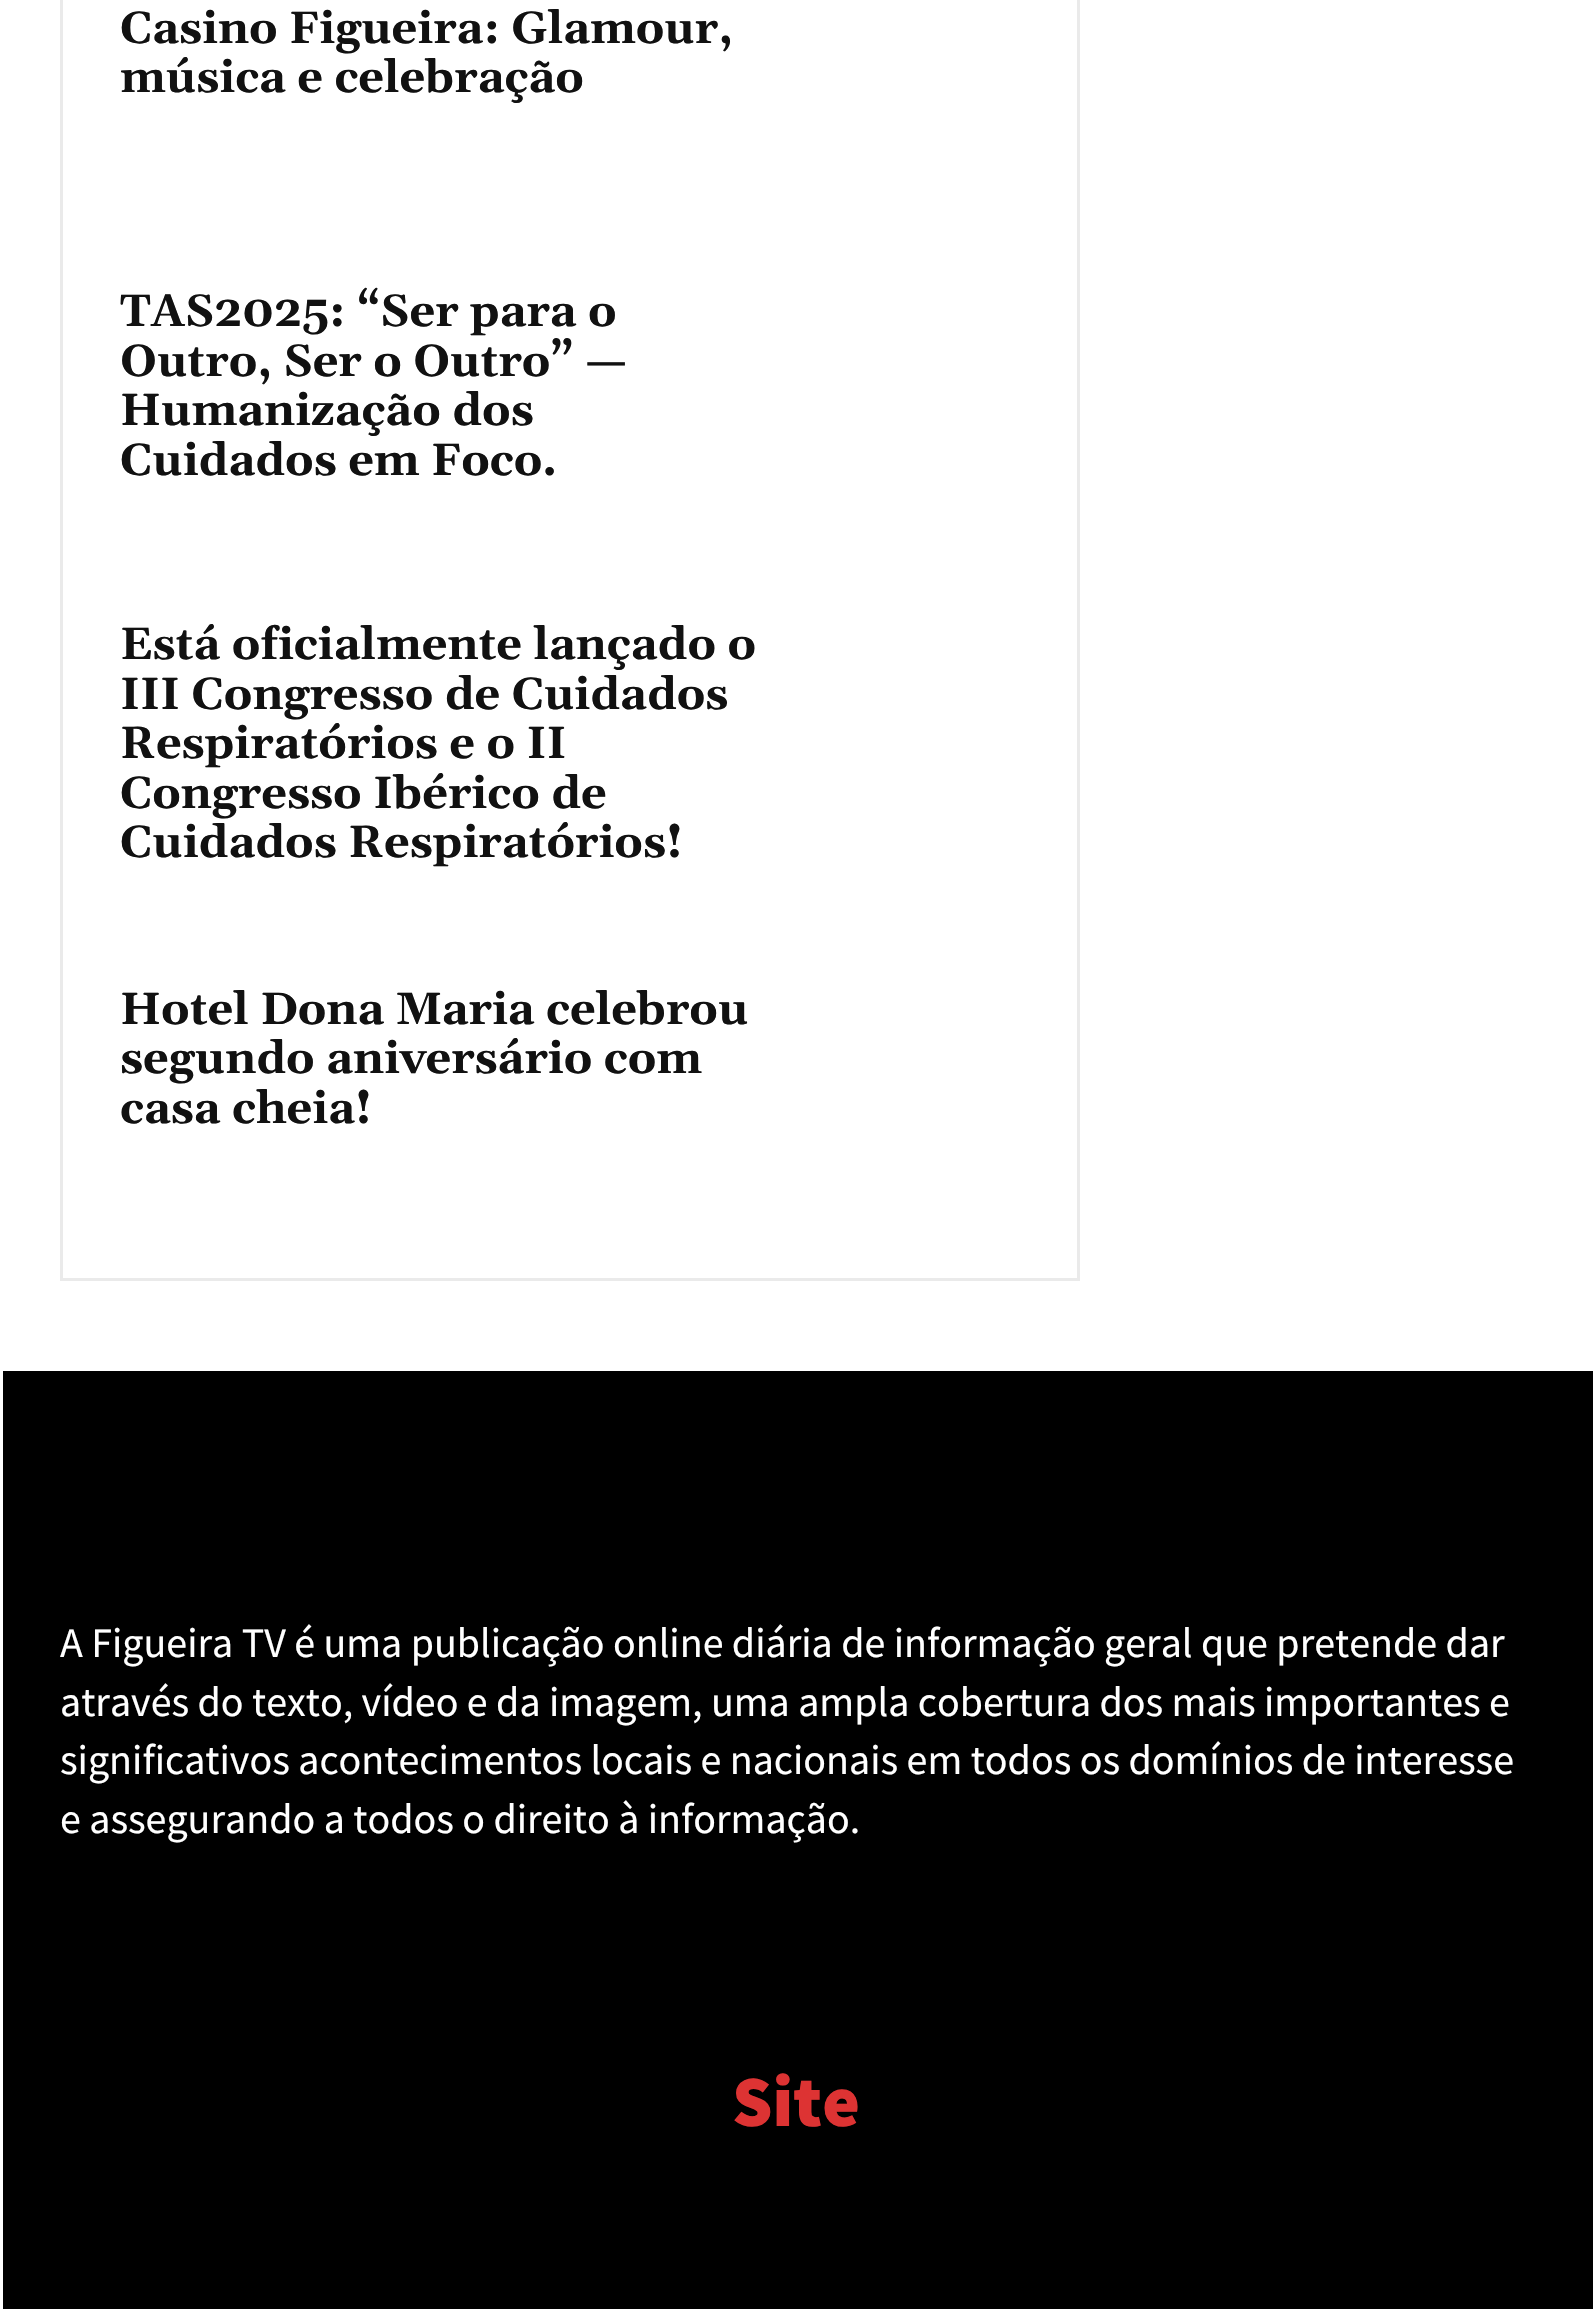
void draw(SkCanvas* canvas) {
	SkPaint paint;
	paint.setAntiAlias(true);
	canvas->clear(0xffffffff);
	paint.setStroke(true);
	paint.setStrokeWidth(3);
	paint.setColor(0xffeaeaea);
	canvas->drawRect(SkRect::MakeXYWH(61.5, -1.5, 1017, 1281), paint);
	SkFont f1(fontMgr->matchFamilyStyle("Gelasio", SkFontStyle::Bold()), 45);
	f1.setSubpixel(true);
	paint.setStroke(false);
	paint.setColor(0xff111111);
	canvas->drawString("Casino Figueira: Glamour,", 120, 43, f1, paint);
	canvas->drawString("música e celebração", 120, 92, f1, paint);
	canvas->drawString("TAS2025: “Ser para o", 120, 326, f1, paint);
	canvas->drawString("Outro, Ser o Outro” —", 120, 376, f1, paint);
	canvas->drawString("Humanização dos", 120, 425, f1, paint);
	canvas->drawString("Cuidados em Foco.", 120, 475, f1, paint);
	canvas->drawString("Está oficialmente lançado o", 120, 659, f1, paint);
	canvas->drawString("III Congresso de Cuidados", 120, 709, f1, paint);
	canvas->drawString("Respiratórios e o II", 120, 758, f1, paint);
	canvas->drawString("Congresso Ibérico de", 120, 808, f1, paint);
	canvas->drawString("Cuidados Respiratórios!", 120, 857, f1, paint);
	canvas->drawString("Hotel Dona Maria celebrou", 120, 1024, f1, paint);
	canvas->drawString("segundo aniversário com", 120, 1073, f1, paint);
	canvas->drawString("casa cheia!", 120, 1123, f1, paint);
	paint.setColor(0xff000000);
	canvas->drawRect(SkRect::MakeXYWH(3, 1371, 1590, 938), paint);
	SkFont f2(fontMgr->matchFamilyStyle("Source Sans Pro", SkFontStyle::Normal()), 42);
	f2.setSubpixel(true);
	paint.setColor(0xffffffff);
	canvas->drawString("A Figueira TV é uma publicação online diária de informação geral que pretende dar", 60, 1657, f2, paint);
	canvas->drawString("através do texto, vídeo e da imagem, uma ampla cobertura dos mais importantes e", 60, 1716, f2, paint);
	canvas->drawString("significativos acontecimentos locais e nacionais em todos os domínios de interesse", 60, 1774, f2, paint);
	canvas->drawString("e assegurando a todos o direito à informação.", 60, 1833, f2, paint);
	SkFont f3(fontMgr->matchFamilyStyle("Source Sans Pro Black", SkFontStyle(900, SkFontStyle::kNormal_Width, SkFontStyle::kUpright_Slant)), 72);
	f3.setSubpixel(true);
	paint.setColor(0xffdd3333);
	canvas->drawString("Site", 732, 2126, f3, paint);
}
